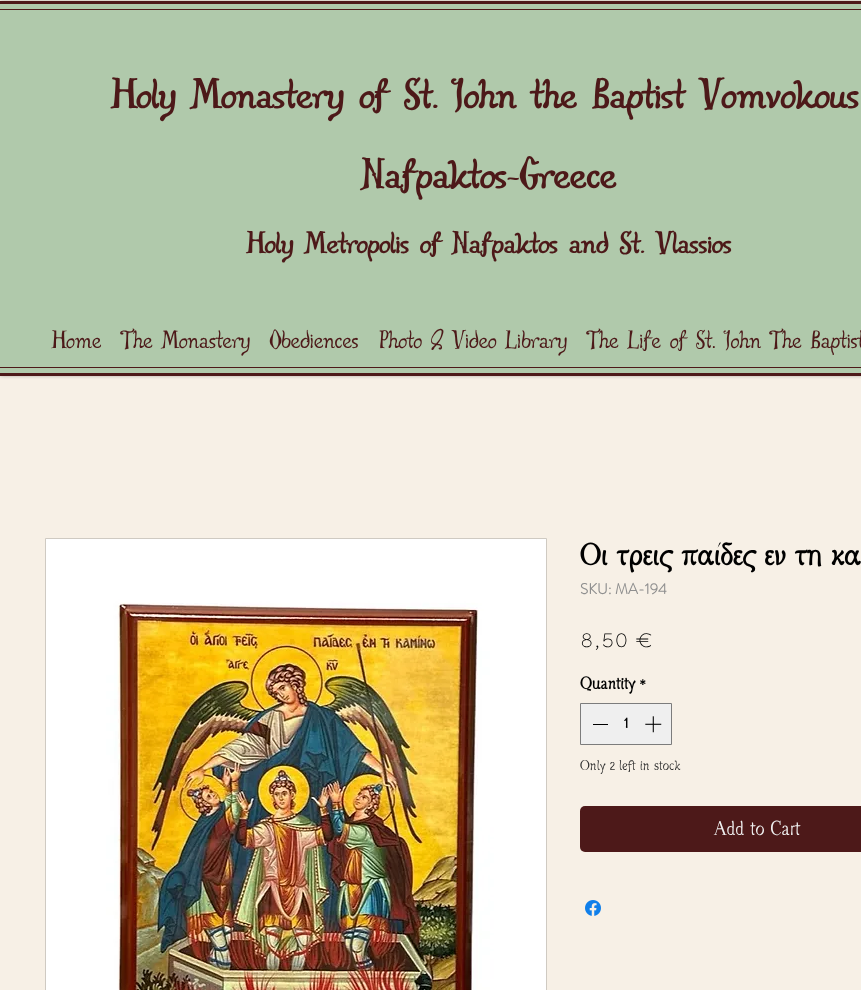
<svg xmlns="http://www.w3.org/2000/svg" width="861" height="990">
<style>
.a{font:600 55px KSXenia;fill:#4d1919}
.b{font:600 40px KSXenia;fill:#4d1919}
.c{font:32px KSXenia;fill:#4d1919}
.d{font:bold 30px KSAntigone;fill:#000}
.e{font:bold 15px 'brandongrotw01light';fill:#8f8f8f}
.f{font:300 27px 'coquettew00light';fill:#000}
.g{font:bold 17px KSAntigone;fill:#000}
.h{font:14px KSAntigone;fill:#303030}
.i{font:20px KSAntigone;fill:#efefef}
</style>
<rect width="100%" height="100%" fill="#f7f0e6"/>
<path fill="#000000b3" filter="blur(2.5px)" d="M0 3h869v371H0z"/>
<path fill="#b0c9ab" d="M0 4h861v369H0z"/>
<path fill="#4d1919" d="M0 1h861v3H0z"/>
<path fill="#4d1919" d="M0 373h861v3H0z"/>
<path fill="#4d1919" d="M0 9h861v1H0z"/>
<path fill="#4d1919" d="M0 367h861v1H0z"/>
<path fill="none" stroke="#cfcac2" d="M45.5 538.5h501v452H45.5z"/>
<image href="1.png" x="46" y="539" width="500" height="451"/>
<path fill="#efefef" stroke="#7c7c7c" d="M580.5 703.5h91v41H580.5z"/>
<path fill="#000" d="M593 724h15v1H593z"/>
<image href="2.png" x="645" y="716" width="17" height="17"/>
<rect fill="#4d1919" x="580" y="806" width="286" height="46" rx="5"/>
<image href="3.png" x="585" y="900" width="16" height="16"/>
<text class="a" x="112" y="108">Holy Monastery of St. John the Baptist Vomvokous</text>
<text class="a" x="362" y="188">Nafpaktos-Greece</text>
<text class="b" x="247" y="253">Holy Metropolis of Nafpaktos and St. Vlassios</text>
<text class="c" x="52" y="348">Home</text>
<text class="c" x="121" y="348">The Monastery</text>
<text class="c" x="270" y="348">Obediences</text>
<text class="c" x="379" y="348">Photo &amp; Video Library</text>
<text class="c" x="587" y="348">The Life of St. John The Baptist</text>
<text class="d" x="580" y="565">Οι τρεις παίδες εν τη κα</text>
<text class="e" x="580" y="594">SKU: MA-194</text>
<text class="f" x="580" y="647">8,50 €</text>
<text class="g" x="580" y="689">Quantity</text>
<text class="g" x="639" y="689">*</text>
<text class="g" x="624" y="728">1</text>
<text class="h" x="580" y="770">Only 2 left in stock</text>
<text class="i" x="714" y="835">Add to Cart</text>
</svg>
